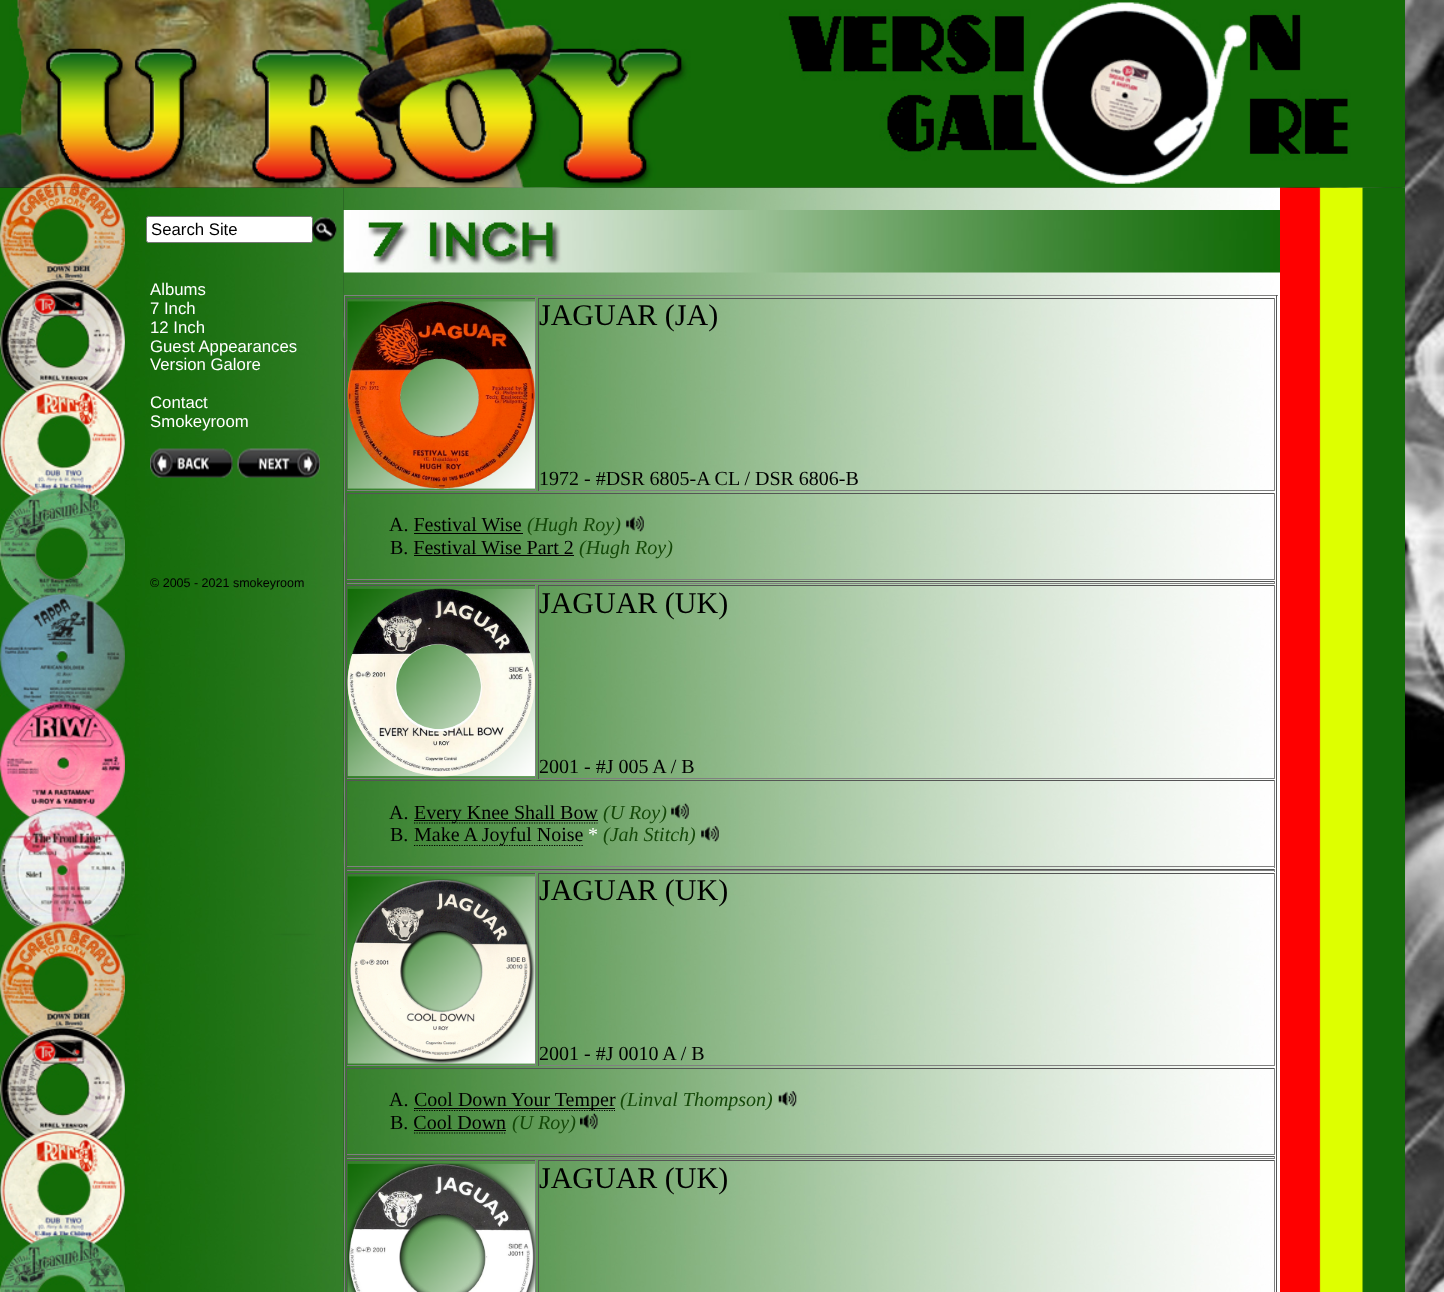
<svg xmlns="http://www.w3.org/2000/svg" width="1444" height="1292">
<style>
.a{font:16.75px Liberation Sans;fill:#000}
.b{font:16.75px Liberation Sans;fill:#fff}
.c{font:12.5px Liberation Sans;fill:#000}
.d{font:30px Liberation Serif;fill:#000}
.e{font:20px Liberation Serif;fill:#000}
.f{font:italic 20px Liberation Serif;fill:#144808}
.g{font:20px Liberation Serif;fill:#fff}
</style>
<rect width="100%" height="100%" fill="#fff"/>
<image href="1.png" x="0" y="0" width="1444" height="1292"/>
<image href="3.png" x="0" y="187" width="125" height="1105"/>
<image href="4.png" x="125" y="187" width="219" height="1105"/>
<image href="8.png" x="343" y="187" width="937" height="1105"/>
<image href="23.png" x="1280" y="187" width="125" height="1105"/>
<image href="2.png" x="0" y="0" width="1405" height="188"/>
<rect fill="#fff" stroke="#767676" x="146.5" y="216.5" width="166" height="26" rx="2"/>
<image href="5.png" x="312" y="217" width="25" height="25"/>
<image href="6.png" x="150" y="448" width="83" height="30"/>
<image href="7.png" x="237" y="448" width="83" height="30"/>
<image href="9.png" x="343" y="210" width="937" height="63"/>
<path fill="#808080" d="M344 295h934v1H344z"/>
<path fill="#555" d="M1276 295h1v997H1276z"/>
<path fill="#808080" d="M344 295h1v997H344z"/>
<path fill="#555" d="M346 298h190v1H346z"/>
<path fill="#808080" d="M535 298h1v193H535z"/>
<path fill="#808080" d="M346 490h190v1H346z"/>
<path fill="#555" d="M346 298h1v193H346z"/>
<image href="10.png" x="347" y="301" width="188" height="188"/>
<image href="11.png" x="347" y="301" width="188" height="188"/>
<path fill="#555" d="M538 298h737v1H538z"/>
<path fill="#808080" d="M1274 298h1v193H1274z"/>
<path fill="#808080" d="M538 490h737v1H538z"/>
<path fill="#555" d="M538 298h1v193H538z"/>
<path fill="#555" d="M346 493h929v1H346z"/>
<path fill="#808080" d="M1274 493h1v87H1274z"/>
<path fill="#808080" d="M346 579h929v1H346z"/>
<path fill="#555" d="M346 493h1v87H346z"/>
<image href="12.png" x="626" y="516" width="18" height="16"/>
<path fill="#000" d="M414 533h109v1H414z"/>
<path fill="#000" d="M414 555h160v1H414z"/>
<path fill="#555" d="M346 581h929v1H346z"/>
<path fill="#808080" d="M1274 581h1v3H1274z"/>
<path fill="#808080" d="M346 583h929v1H346z"/>
<path fill="#555" d="M346 581h1v3H346z"/>
<path fill="#555" d="M346 585h190v1H346z"/>
<path fill="#808080" d="M535 585h1v194H535z"/>
<path fill="#808080" d="M346 778h190v1H346z"/>
<path fill="#555" d="M346 585h1v194H346z"/>
<image href="13.png" x="347" y="588" width="188" height="189"/>
<image href="14.png" x="347" y="588" width="188" height="189"/>
<path fill="#555" d="M538 585h737v1H538z"/>
<path fill="#808080" d="M1274 585h1v194H1274z"/>
<path fill="#808080" d="M538 778h737v1H538z"/>
<path fill="#555" d="M538 585h1v194H538z"/>
<path fill="#555" d="M346 780h929v1H346z"/>
<path fill="#808080" d="M1274 780h1v88H1274z"/>
<path fill="#808080" d="M346 866h929v1H346z"/>
<path fill="#555" d="M346 780h1v88H346z"/>
<path fill="none" stroke="#000" stroke-width="1.2" stroke-dasharray="1.25 1.25" d="M414 823h183.5"/>
<path fill="#000" d="M414 820h184v1H414z"/>
<image href="15.png" x="671" y="803" width="18" height="16"/>
<path fill="none" stroke="#000" stroke-width="1.2" stroke-dasharray="1.25 1.25" d="M414 845.5h170"/>
<image href="16.png" x="701" y="826" width="18" height="16"/>
<path fill="#555" d="M346 869h929v1H346z"/>
<path fill="#808080" d="M1274 869h1v3H1274z"/>
<path fill="#808080" d="M346 870h929v1H346z"/>
<path fill="#555" d="M346 869h1v3H346z"/>
<path fill="#555" d="M346 873h190v1H346z"/>
<path fill="#808080" d="M535 873h1v193H535z"/>
<path fill="#808080" d="M346 1065h190v1H346z"/>
<path fill="#555" d="M346 873h1v193H346z"/>
<image href="17.png" x="347" y="876" width="188" height="188"/>
<image href="18.png" x="349" y="879" width="186" height="185"/>
<path fill="#555" d="M538 873h737v1H538z"/>
<path fill="#808080" d="M1274 873h1v193H1274z"/>
<path fill="#808080" d="M538 1065h737v1H538z"/>
<path fill="#555" d="M538 873h1v193H538z"/>
<path fill="#555" d="M346 1068h929v1H346z"/>
<path fill="#808080" d="M1274 1068h1v87H1274z"/>
<path fill="#808080" d="M346 1154h929v1H346z"/>
<path fill="#555" d="M346 1068h1v87H346z"/>
<path fill="none" stroke="#000" stroke-width="1.2" stroke-dasharray="1.25 1.25" d="M414 1110.5h201"/>
<path fill="#000" d="M414 1108h201v1H414z"/>
<image href="19.png" x="778" y="1091" width="19" height="16"/>
<image href="20.png" x="580" y="1113" width="18" height="16"/>
<path fill="#000" d="M414 1130h92v1H414z"/>
<path fill="none" stroke="#000" stroke-width="1.2" stroke-dasharray="1.25 1.25" d="M414 1133h92"/>
<path fill="#555" d="M346 1156h929v1H346z"/>
<path fill="#808080" d="M1274 1156h1v3H1274z"/>
<path fill="#808080" d="M346 1158h929v1H346z"/>
<path fill="#555" d="M346 1156h1v3H346z"/>
<path fill="#555" d="M346 1160h190v1H346z"/>
<path fill="#808080" d="M535 1160h1v132H535z"/>
<path fill="#555" d="M346 1160h1v132H346z"/>
<image href="21.png" x="347" y="1163" width="188" height="129"/>
<image href="22.png" x="347" y="1163" width="188" height="129"/>
<path fill="#555" d="M538 1160h737v1H538z"/>
<path fill="#808080" d="M1274 1160h1v132H1274z"/>
<path fill="#555" d="M538 1160h1v132H538z"/>
<text class="a" x="151" y="235">Search Site</text>
<text class="b" x="150" y="295">Albums</text>
<text class="b" x="150" y="314">7 Inch</text>
<text class="b" x="150" y="333">12 Inch</text>
<text class="b" x="150" y="352">Guest Appearances</text>
<text class="b" x="150" y="370">Version Galore</text>
<text class="b" x="150" y="408">Contact</text>
<text class="b" x="150" y="427">Smokeyroom</text>
<text class="c" x="150" y="587">© 2005 - 2021 smokeyroom</text>
<text class="d" x="539" y="325">JAGUAR (JA)</text>
<text class="e" x="539" y="485">1972 - #DSR 6805-A CL / DSR 6806-B</text>
<text class="e" x="389" y="531">A. Festival Wise</text>
<text class="f" x="527" y="531">(Hugh Roy)</text>
<text class="e" x="390" y="554">B. Festival Wise Part 2</text>
<text class="f" x="579" y="554">(Hugh Roy)</text>
<text class="d" x="539" y="613">JAGUAR (UK)</text>
<text class="e" x="539" y="773">2001 - #J 005 A / B</text>
<text class="e" x="389" y="819">A.</text>
<text class="e" x="414" y="819">Every Knee Shall Bow</text>
<text class="f" x="603" y="819">(U Roy)</text>
<text class="e" x="390" y="841">B.</text>
<text class="e" x="414" y="841">Make A Joyful Noise</text>
<text class="g" x="588" y="841">*</text>
<text class="f" x="603" y="841">(Jah Stitch)</text>
<text class="d" x="539" y="900">JAGUAR (UK)</text>
<text class="e" x="539" y="1060">2001 - #J 0010 A / B</text>
<text class="e" x="389" y="1106">A.</text>
<text class="e" x="414" y="1106">Cool Down Your Temper</text>
<text class="f" x="620" y="1106">(Linval Thompson)</text>
<text class="e" x="390" y="1129">B. Cool Down</text>
<text class="f" x="512" y="1129">(U Roy)</text>
<text class="d" x="539" y="1188">JAGUAR (UK)</text>
</svg>
